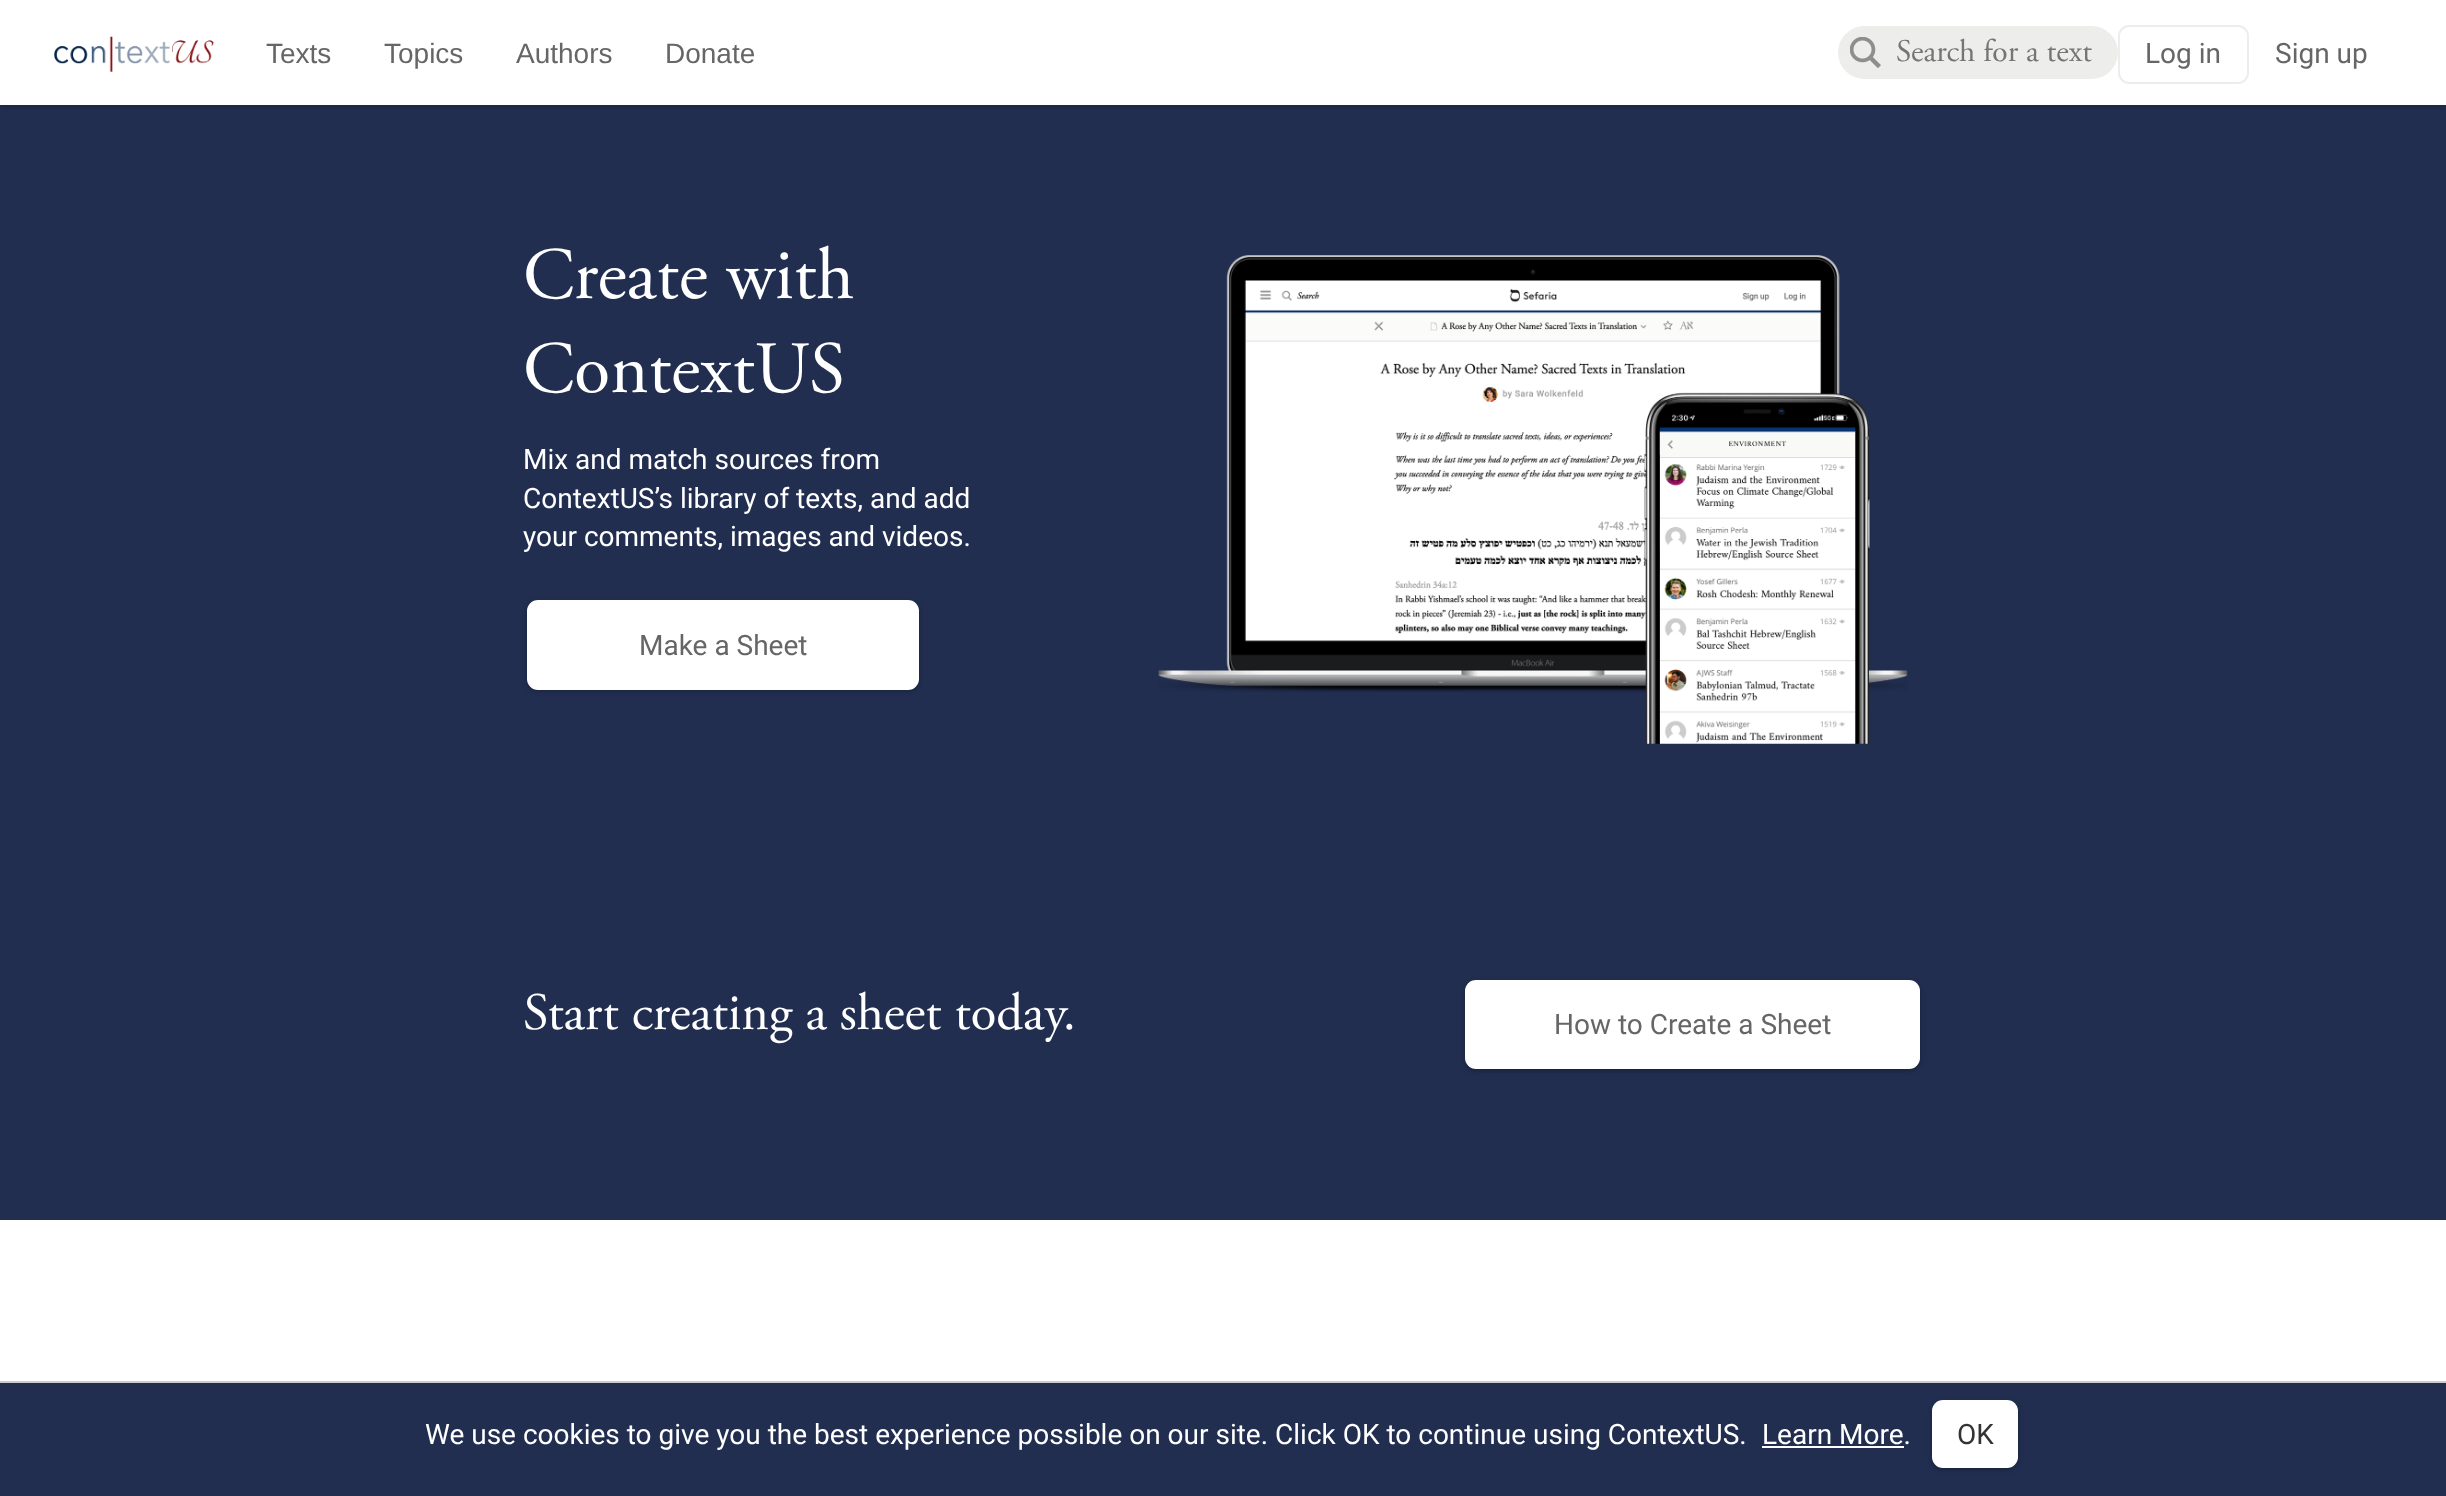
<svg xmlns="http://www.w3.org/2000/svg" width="2446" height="1496">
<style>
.a{font:28px Liberation Sans;fill:#666}
.b{font:31.5px Adobe Garamond;fill:#757575}
.c{font:28px Roboto;fill:#666}
.d{font:28px Roboto;fill:#fff}
.e{font:28px Roboto;fill:#333}
.f{font:73.5px Adobe Garamond;fill:#fff}
.g{font:52.5px Adobe Garamond;fill:#fff}
</style>
<defs>
<clipPath id="clip1"><path d="M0 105h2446v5H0z"/></clipPath>
</defs>
<rect width="100%" height="100%" fill="#fff"/>
<path fill="#212e50" d="M0 105h2446v1115H0z"/>
<g clip-path="url(#clip1)">
<path fill="#00000033" filter="blur(2.5px)" d="M0 2h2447v105H0z"/>
</g>
<image href="1.png" x="54" y="36" width="160" height="36"/>
<rect fill="#ededec" x="1838" y="26" width="280" height="53" rx="26.5"/>
<image href="2.png" x="1850" y="37" width="31" height="31"/>
<rect fill="none" stroke="#ededec" stroke-width="2" x="2119" y="26" width="129" height="57" rx="10"/>
<path fill="#212e50" d="M0 1383h2446v113H0z"/>
<path fill="#ccc" d="M0 1381h2446v2H0z"/>
<path fill="#fff" d="M1762 1446h142v2H1762z"/>
<rect fill="#00000040" filter="blur(2.5px)" x="1932" y="1402" width="86" height="68" rx="11"/>
<rect fill="#fff" x="1932" y="1400" width="86" height="68" rx="11"/>
<rect fill="#00000040" filter="blur(2.5px)" x="527" y="602" width="392" height="89" rx="11"/>
<rect fill="#fff" x="527" y="600" width="392" height="90" rx="11"/>
<image href="3.png" x="1158" y="255" width="750" height="489"/>
<rect fill="#00000040" filter="blur(2.5px)" x="1465" y="982" width="455" height="89" rx="11"/>
<rect fill="#fff" x="1465" y="980" width="455" height="89" rx="11"/>
<text class="a" x="266" y="63">Texts</text>
<text class="a" x="384" y="63">Topics</text>
<text class="a" x="516" y="63">Authors</text>
<text class="a" x="665" y="63">Donate</text>
<text class="b" x="1896" y="61">Search for a text</text>
<text class="c" x="2145" y="63">Log in</text>
<text class="c" x="2275" y="63">Sign up</text>
<text class="d" x="425" y="1444">We use cookies to give you the best experience possible on our site. Click OK to continue using ContextUS.</text>
<text class="d" x="1762" y="1444">Learn More.</text>
<text class="e" x="1957" y="1444">OK</text>
<text class="f" x="523" y="298">Create with</text>
<text class="f" x="523" y="392">ContextUS</text>
<text class="d" x="523" y="469">Mix and match sources from</text>
<text class="d" x="523" y="508">ContextUS’s library of texts, and add</text>
<text class="d" x="523" y="546">your comments, images and videos.</text>
<text class="c" x="639" y="655">Make a Sheet</text>
<text class="g" x="523" y="1029">Start creating a sheet today.</text>
<text class="c" x="1554" y="1034">How to Create a Sheet</text>
</svg>
